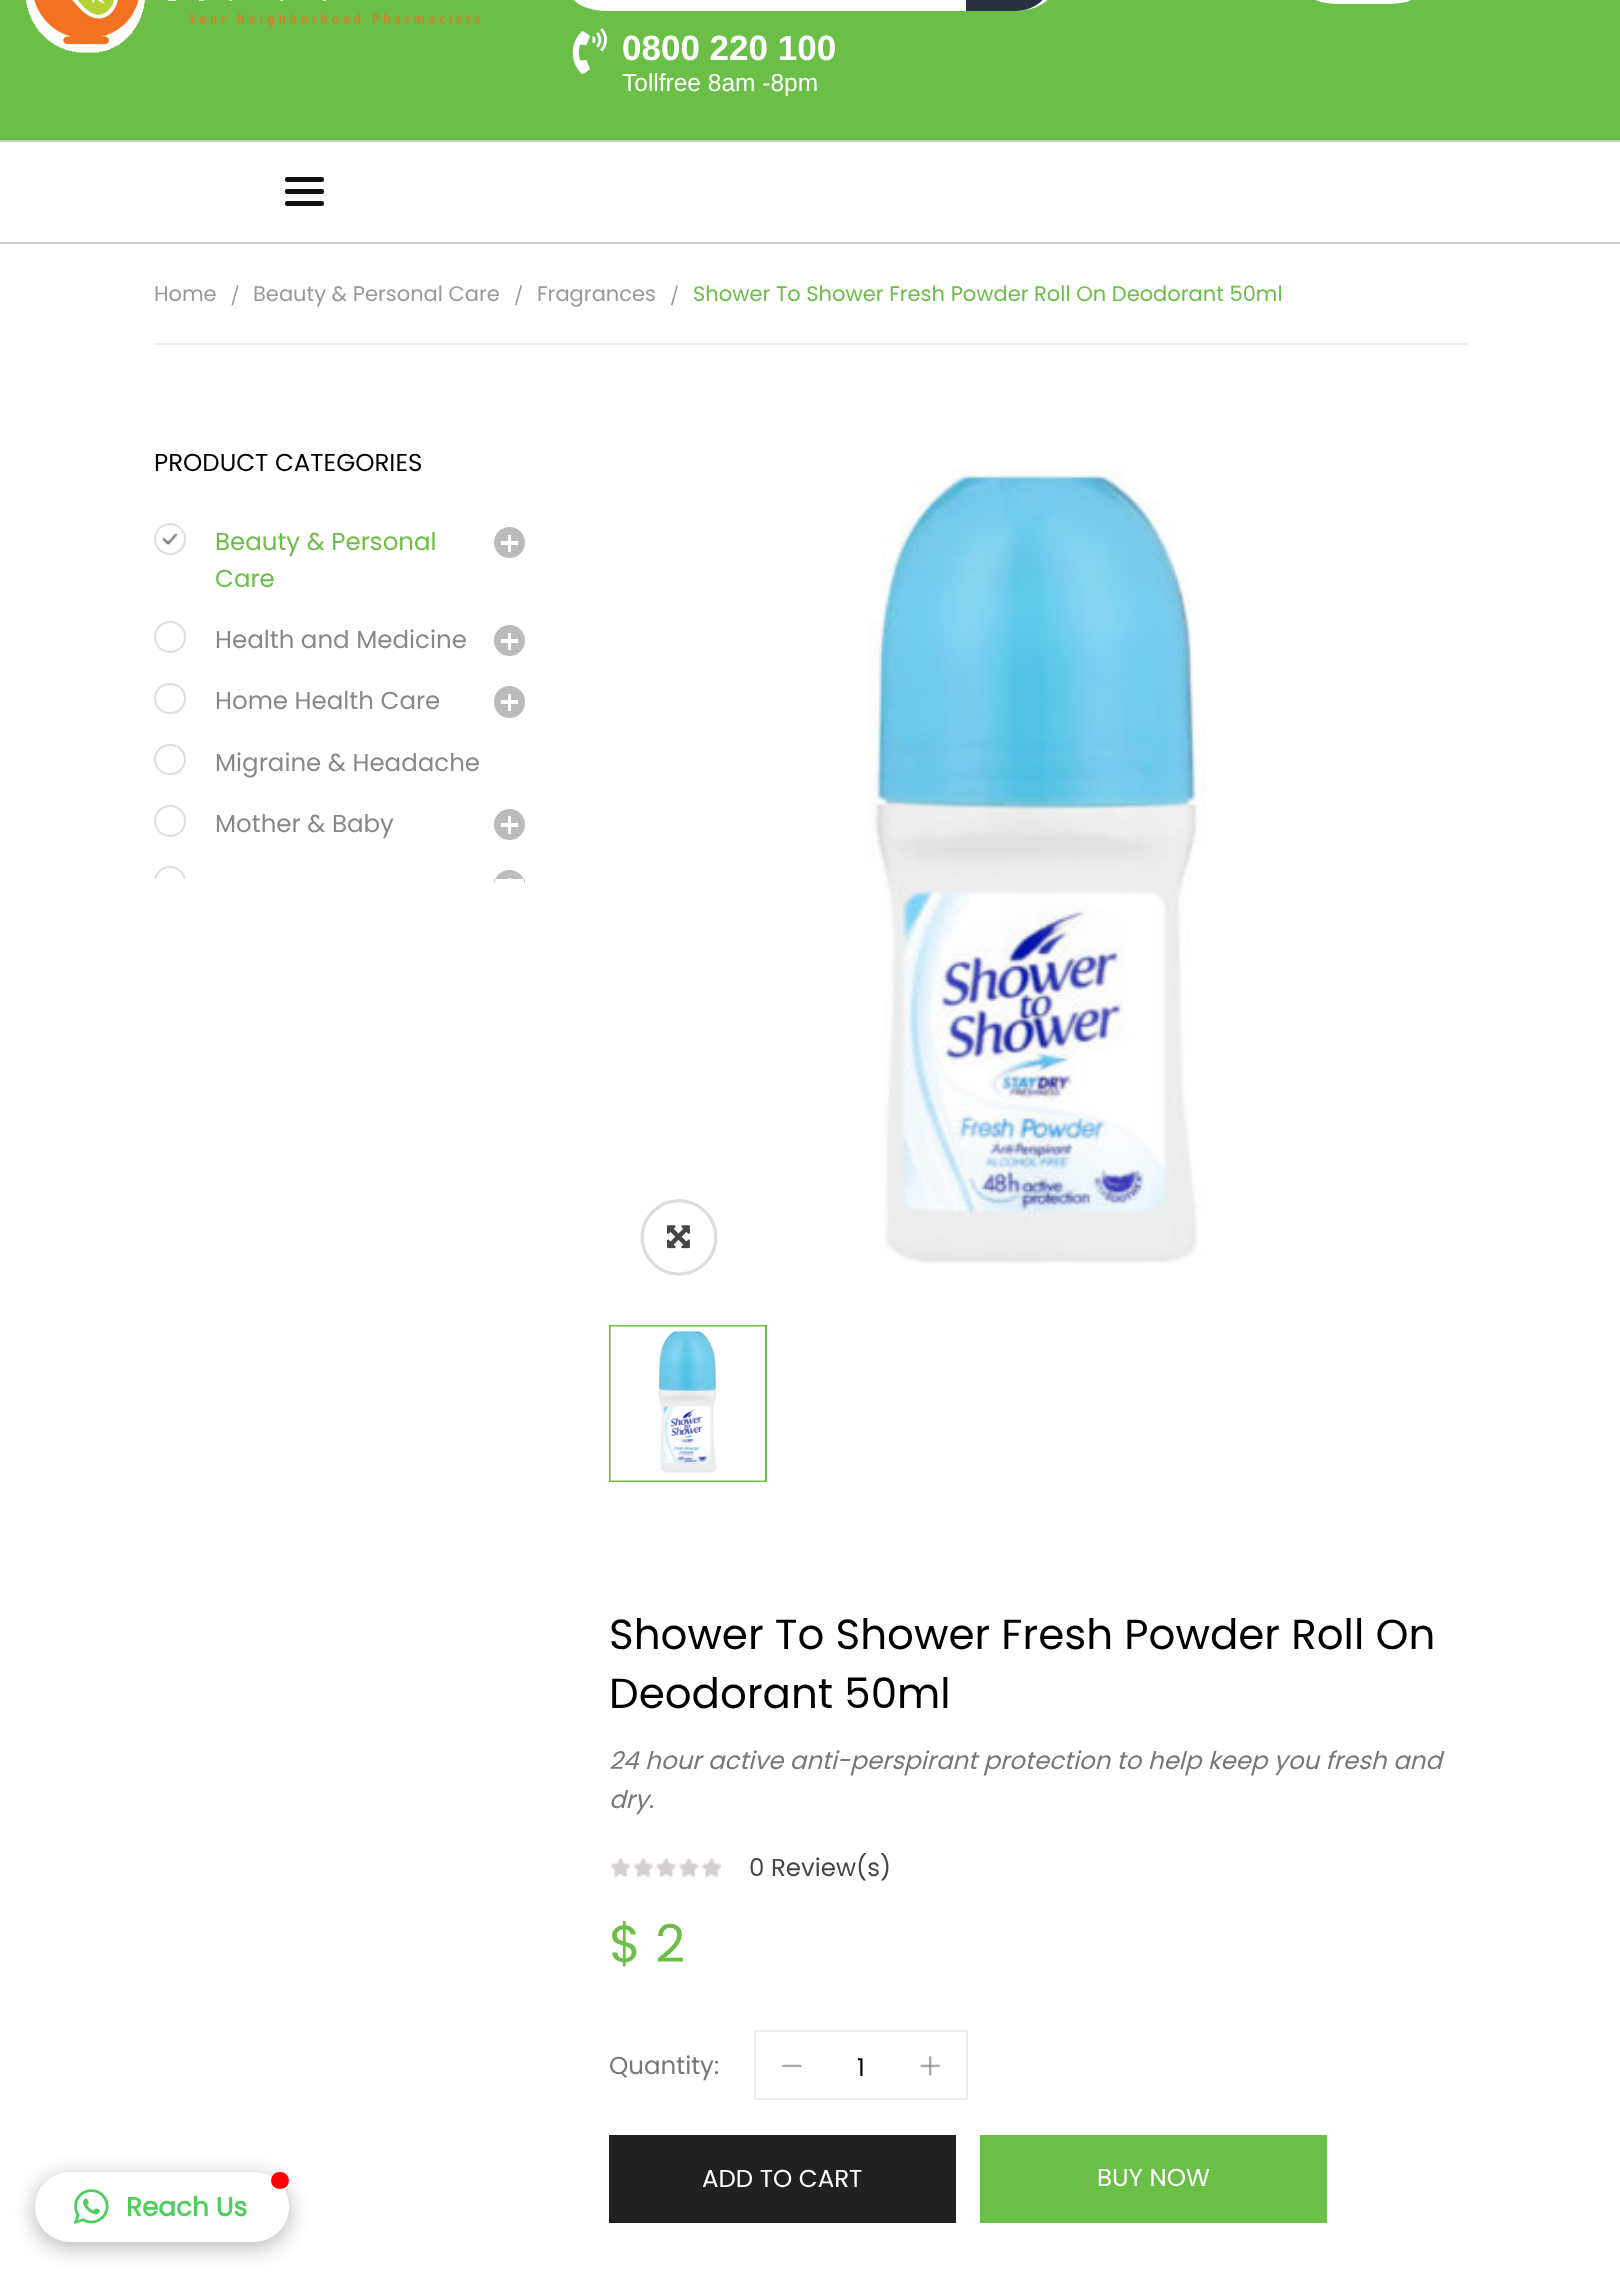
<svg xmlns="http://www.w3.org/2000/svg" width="1620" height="2276">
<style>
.a{font:bold 35px Liberation Sans;fill:#fff}
.b{font:24.5px Liberation Sans;fill:#fff}
.c{font:21px Poppins;fill:#999}
.d{font:21px Poppins;fill:#6bbe46}
.e{font:24.5px Poppins;fill:#000}
.f{font:24.5px Poppins;fill:#6bbe46}
.g{font:24.5px Poppins;fill:#888}
.h{font:42px Poppins;fill:#000}
.i{font:italic 24.5px Poppins;fill:#777}
.j{font:24.5px Poppins;fill:#464646}
.k{font:52px Poppins;fill:#6bbe46}
.l{font:24.5px Poppins;fill:#777}
.m{font:24.5px Poppins;fill:#fff}
.n{font:bold 26.25px Poppins;fill:#4fce5d}
</style>
<defs>
<clipPath id="clip1"><path d="M154 511h403v368H154z"/></clipPath>
</defs>
<rect width="100%" height="100%" fill="#fff"/>
<path fill="#6bbe46" d="M0 0h1620v140H0z"/>
<rect fill="#fff" x="1302" y="-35" width="123" height="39" rx="35"/>
<image href="1.png" x="26" y="0" width="454" height="53"/>
<rect fill="#fff" x="567" y="-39" width="487" height="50" rx="38.5"/>
<path fill="#283142" d="M966-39h49.5c21.5 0 38.5 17 38.5 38.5v-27c0 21.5-17 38.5-38.5 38.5h-49.5z"/>
<image href="2.png" x="572" y="28" width="35" height="46"/>
<path fill="#ccc" d="M0 140h1620v2H0z"/>
<path fill="#ccc" d="M0 242h1620v2H0z"/>
<rect fill="#111" x="285" y="177" width="39" height="5" rx="2"/>
<rect fill="#111" x="285" y="189" width="39" height="5" rx="2"/>
<rect fill="#111" x="285" y="201" width="39" height="5" rx="2"/>
<path fill="#ededed" d="M154 343h1313v2H154z"/>
<path fill="#999" d="M237 285l1.5 .5l-5.5 20l-1.5-.5z"/>
<path fill="#999" d="M520.5 285l1.5 .5l-5.5 20l-1.5-.5z"/>
<path fill="#999" d="M676.5 285l1.5 .5l-5.5 20l-1.5-.5z"/>
<circle fill="none" stroke="#dedede" stroke-width="2" cx="170" cy="539" r="15"/>
<circle fill="#bbb" cx="509.5" cy="542.5" r="15.5"/>
<path fill="#fff" d="M501 541h17v4H501z"/>
<path fill="#fff" d="M508 535h3v17H508z"/>
<image href="3.png" x="162" y="533" width="15" height="12"/>
<circle fill="none" stroke="#dedede" stroke-width="2" cx="170" cy="637" r="15"/>
<circle fill="#bbb" cx="509.5" cy="640.5" r="15.5"/>
<path fill="#fff" d="M501 639h17v4H501z"/>
<path fill="#fff" d="M508 633h3v17H508z"/>
<rect fill="none" stroke="#dedede" stroke-width="2" x="155" y="684" width="30" height="29" rx="14.5"/>
<rect fill="#bbb" x="494" y="686" width="31" height="32" rx="15.5"/>
<path fill="#fff" d="M501 700h17v4H501z"/>
<path fill="#fff" d="M508 694h3v17H508z"/>
<rect fill="none" stroke="#dedede" stroke-width="2" x="155" y="745" width="30" height="29" rx="14.5"/>
<circle fill="none" stroke="#dedede" stroke-width="2" cx="170" cy="821" r="15"/>
<circle fill="#bbb" cx="509.5" cy="824.5" r="15.5"/>
<path fill="#fff" d="M501 823h17v4H501z"/>
<path fill="#fff" d="M508 816h3v18H508z"/>
<g clip-path="url(#clip1)">
<circle fill="none" stroke="#dedede" stroke-width="2" cx="170" cy="882" r="15"/>
</g>
<path fill="#bbb" d="M509.5 870c8.5 0 15.5 7 15.5 15.5v-6.5h-31v6.5c0-8.5 7-15.5 15.5-15.5z"/>
<path fill="#fff" d="M508 878h3v1H508z"/>
<path fill="none" stroke="#ddd" stroke-width="3.5" d="M653 1211.5c14.5-14.5 37.5-14.5 52 0c14.5 14 14.5 37.5 0 51.5c-14.5 14.5-37.5 14.5-52 0c-14.5-14-14.5-37.5 0-51.5z"/>
<path fill="#fff" d="M654 1213c14-14 36-14 50 0c13 13 13 35 0 49c-14 14-36 14-50 0c-13-14-13-36 0-49z"/>
<image href="4.png" x="667" y="1225" width="23" height="24"/>
<image href="5.png" x="867" y="467" width="339" height="797"/>
<path fill="none" stroke="#6bbe46" stroke-width="2" d="M610 1326h156v155H610z"/>
<image href="6.png" x="610" y="1326" width="155" height="155"/>
<image href="7.png" x="610" y="1858" width="115" height="20"/>
<path fill="none" stroke="#ededed" stroke-width="2" d="M755 2031h212v68H755z"/>
<image href="8.png" x="781" y="2064" width="21" height="4"/>
<image href="9.png" x="920" y="2055" width="21" height="21"/>
<path fill="#212121" d="M609 2135h347v88H609z"/>
<path fill="#6bbe46" d="M980 2135h347v88H980z"/>
<rect fill="#00000026" filter="blur(10.5px)" x="35" y="2177" width="254" height="70" rx="35"/>
<rect fill="#00000026" filter="blur(10.5px)" x="35" y="2177" width="254" height="70" rx="35"/>
<rect fill="#fff" x="35" y="2172" width="254" height="70" rx="35"/>
<rect fill="#f00" x="271" y="2172" width="18" height="17" rx="8.5"/>
<image href="10.png" x="74" y="2189" width="35" height="35"/>
<text class="a" x="622" y="60">0800 220 100</text>
<text class="b" x="622" y="91">Tollfree 8am -8pm</text>
<text class="c" x="154" y="301">Home</text>
<text class="c" x="253" y="301">Beauty &amp; Personal Care</text>
<text class="c" x="537" y="301">Fragrances</text>
<text class="d" x="693" y="301">Shower To Shower Fresh Powder Roll On Deodorant 50ml</text>
<text class="e" x="154" y="471">PRODUCT CATEGORIES</text>
<text class="f" x="215" y="550">Beauty &amp; Personal</text>
<text class="f" x="215" y="587">Care</text>
<text class="g" x="215" y="648">Health and Medicine</text>
<text class="g" x="215" y="709">Home Health Care</text>
<text class="g" x="215" y="771">Migraine &amp; Headache</text>
<text class="g" x="215" y="832">Mother &amp; Baby</text>
<text class="h" x="609" y="1649">Shower To Shower Fresh Powder Roll On</text>
<text class="h" x="609" y="1708">Deodorant 50ml</text>
<text class="i" x="609" y="1769">24 hour active anti-perspirant protection to help keep you fresh and</text>
<text class="i" x="609" y="1808">dry.</text>
<text class="j" x="749" y="1876">0 Review(s)</text>
<text class="k" x="609" y="1962">$ 2</text>
<text class="l" x="609" y="2074">Quantity:</text>
<text class="e" x="857" y="2076">1</text>
<text class="m" x="702" y="2187">ADD TO CART</text>
<text class="m" x="1097" y="2186">BUY NOW</text>
<text class="n" x="126" y="2216">Reach Us</text>
</svg>
